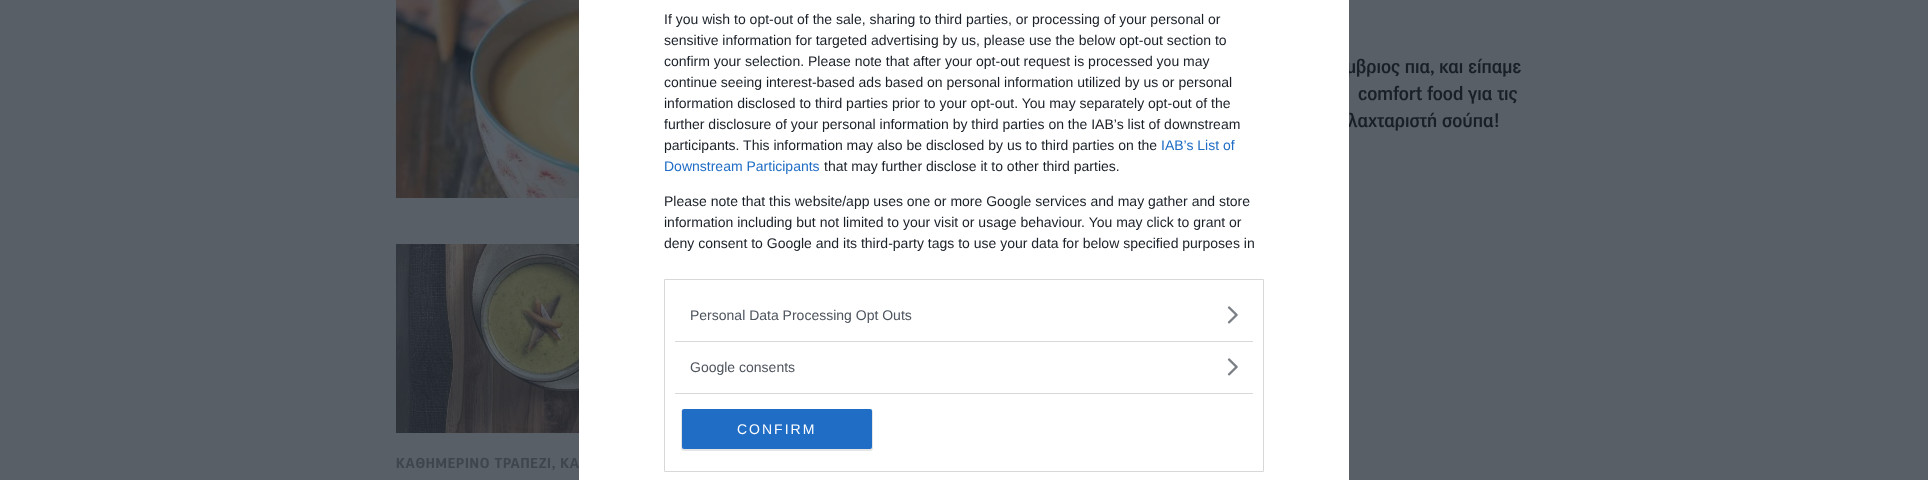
<svg xmlns="http://www.w3.org/2000/svg" width="1928" height="480">
<style>
.a{font:500 19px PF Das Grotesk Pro;fill:#191f27}
.b{font:14px Liberation Sans;letter-spacing:2px;fill:#fff}
.c{font:14px Liberation Sans;fill:#4d545d}
.d{font:14px Liberation Sans;fill:#191f27}
.e{font:14px Liberation Sans;fill:#206dc5}
.f{font:bold 14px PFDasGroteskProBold;letter-spacing:0.7px;fill:#3f454d}
</style>
<rect width="100%" height="100%" fill="#595f67"/>
<image href="2.png" x="396" y="0" width="183" height="198"/>
<image href="3.png" x="396" y="244" width="183" height="189"/>
<text class="a" x="1346" y="73">μβριος πια, και είπαμε</text>
<text class="a" x="1358" y="100">comfort food για τις</text>
<text class="a" x="1348" y="127">λαχταριστή σούπα!</text>
<path fill="#fff" d="M579 0h770v480H579z"/>
<path fill="none" stroke="#d8d8d8" d="M664.5 279.5h599v192H664.5z"/>
<image href="1.png" x="1227" y="358" width="11" height="18"/>
<image href="1.png" x="1227" y="306" width="11" height="18"/>
<rect fill="#0000001a" filter="blur(0.5px)" x="681" y="409" width="192" height="42" rx="3"/>
<rect fill="#206dc5" x="682" y="409" width="190" height="40" rx="2"/>
<text class="b" x="737" y="434">CONFIRM</text>
<text class="c" x="690" y="372">Google consents</text>
<path fill="#d8d8d8" d="M675 393h578v1H675z"/>
<text class="c" x="690" y="320">Personal Data Processing Opt Outs</text>
<path fill="#d8d8d8" d="M675 341h578v1H675z"/>
<text class="d" x="664" y="248">deny consent to Google and its third-party tags to use your data for below specified purposes in</text>
<text class="d" x="664" y="227">information including but not limited to your visit or usage behaviour. You may click to grant or</text>
<text class="d" x="664" y="206">Please note that this website/app uses one or more Google services and may gather and store</text>
<text class="d" x="824" y="171">that may further disclose it to other third parties.</text>
<text class="e" x="664" y="171">Downstream Participants</text>
<text class="e" x="1161" y="150">IAB’s List of</text>
<text class="d" x="664" y="150">participants. This information may also be disclosed by us to third parties on the</text>
<text class="d" x="664" y="129">further disclosure of your personal information by third parties on the IAB’s list of downstream</text>
<text class="d" x="664" y="108">information disclosed to third parties prior to your opt-out. You may separately opt-out of the</text>
<text class="d" x="664" y="87">continue seeing interest-based ads based on personal information utilized by us or personal</text>
<text class="d" x="664" y="66">confirm your selection. Please note that after your opt-out request is processed you may</text>
<text class="d" x="664" y="45">sensitive information for targeted advertising by us, please use the below opt-out section to</text>
<text class="d" x="664" y="24">If you wish to opt-out of the sale, sharing to third parties, or processing of your personal or</text>
<text class="f" x="396" y="468">ΚΑΘΗΜΕΡΙΝΟ ΤΡΑΠΕΖΙ, ΚΑ</text>
</svg>
